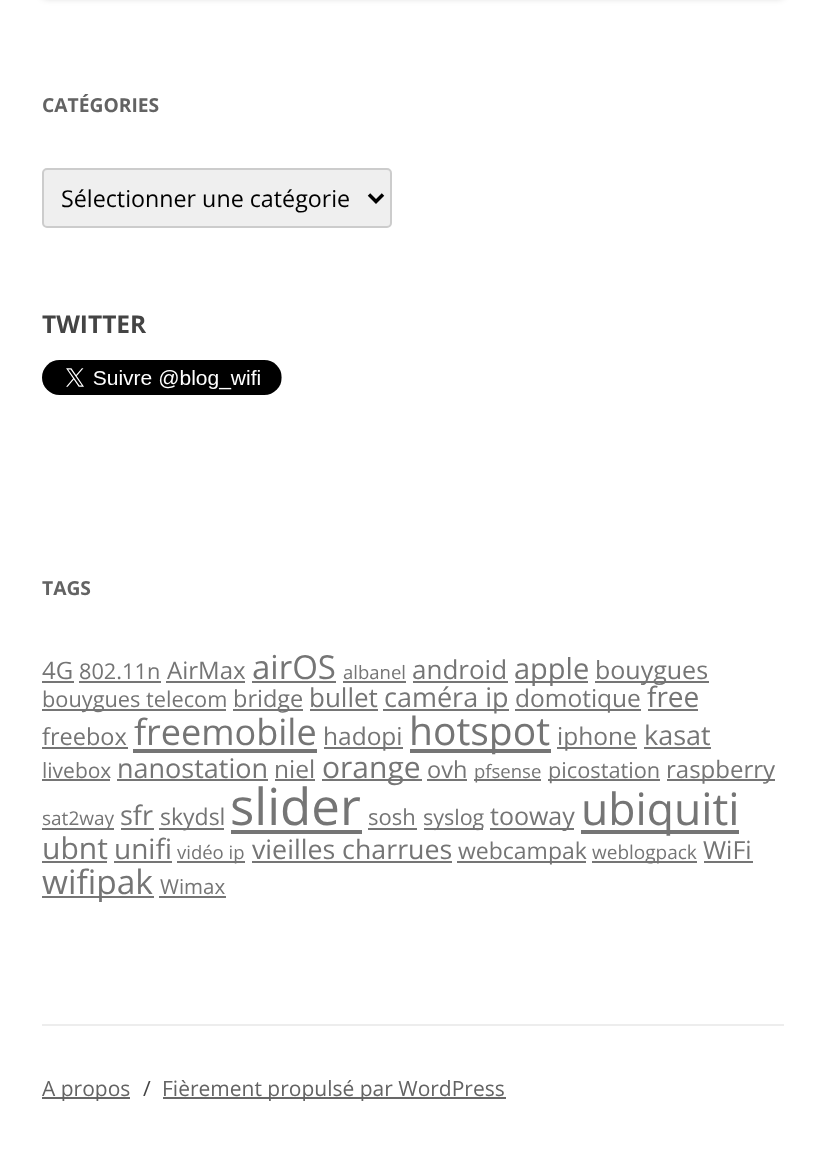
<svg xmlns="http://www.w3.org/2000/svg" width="826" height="1151">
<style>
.a{font:bold 19.25px Open Sans;fill:#636363}
.b{font:23.25px Open Sans;fill:#000}
.c{font:bold 24.5px Open Sans;fill:#444}
.d{font:24px Open Sans;fill:#757575}
.e{font:21.75px Open Sans;fill:#757575}
.f{font:33px Open Sans;fill:#757575}
.g{font:18.5px Open Sans;fill:#757575}
.h{font:26px Open Sans;fill:#757575}
.i{font:29px Open Sans;fill:#757575}
.j{font:25px Open Sans;fill:#757575}
.k{font:23.5px Open Sans;fill:#757575}
.l{font:27px Open Sans;fill:#757575}
.m{font:24.5px Open Sans;fill:#757575}
.n{font:28px Open Sans;fill:#757575}
.o{font:36px Open Sans;fill:#757575}
.p{font:39px Open Sans;fill:#757575}
.q{font:21px Open Sans;fill:#757575}
.r{font:30px Open Sans;fill:#757575}
.s{font:19px Open Sans;fill:#757575}
.t{font:23px Open Sans;fill:#757575}
.u{font:51px Open Sans;fill:#757575}
.v{font:22px Open Sans;fill:#757575}
.w{font:21.5px Open Sans;fill:#757575}
.x{font:44.5px Open Sans;fill:#757575}
.y{font:26.75px Open Sans;fill:#757575}
.z{font:33.5px Open Sans;fill:#757575}
.a1{font:20.5px Open Sans;fill:#757575}
.b1{font:21px Open Sans;fill:#636363}
.c1{font:21px Open Sans;fill:#444}
</style>
<rect width="100%" height="100%" fill="#fff"/>
<rect fill="#00000033" filter="blur(3.5px)" x="42" y="-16" width="742" height="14" rx="5"/>
<rect fill="#efefef" stroke="#ccc" stroke-width="2" x="43" y="169" width="348" height="58" rx="4"/>
<path fill="none" stroke="#000" stroke-width="3.5" d="M369 194.5l7 7l7-7"/>
<image href="1.png" x="42" y="360" width="240" height="35"/>
<path fill="#757575" d="M42 681h32v2H42z"/>
<path fill="#757575" d="M79 681h82v2H79z"/>
<path fill="#757575" d="M166 681h79v2H166z"/>
<path fill="#757575" d="M252 681h84v2H252z"/>
<path fill="#757575" d="M343 681h63v2H343z"/>
<path fill="#757575" d="M413 681h95v2H413z"/>
<path fill="#757575" d="M515 681h73v2H515z"/>
<path fill="#757575" d="M595 681h114v2H595z"/>
<path fill="#757575" d="M42 709h184v2H42z"/>
<path fill="#757575" d="M233 709h70v2H233z"/>
<path fill="#757575" d="M310 709h68v2H310z"/>
<path fill="#757575" d="M383 709h126v2H383z"/>
<path fill="#757575" d="M515 709h126v2H515z"/>
<path fill="#757575" d="M648 709h50v2H648z"/>
<path fill="#757575" d="M42 747h86v2H42z"/>
<path fill="#757575" d="M133 749h184v4H133z"/>
<path fill="#757575" d="M324 747h79v2H324z"/>
<path fill="#757575" d="M410 749h141v4H410z"/>
<path fill="#757575" d="M557 747h80v2H557z"/>
<path fill="#757575" d="M644 747h67v2H644z"/>
<path fill="#757575" d="M42 779h68v2H42z"/>
<path fill="#757575" d="M117 779h151v2H117z"/>
<path fill="#757575" d="M275 779h40v2H275z"/>
<path fill="#757575" d="M322 779h100v2H322z"/>
<path fill="#757575" d="M427 779h40v2H427z"/>
<path fill="#757575" d="M474 779h67v2H474z"/>
<path fill="#757575" d="M548 779h112v2H548z"/>
<path fill="#757575" d="M667 779h108v2H667z"/>
<path fill="#757575" d="M42 828h72v2H42z"/>
<path fill="#757575" d="M121 828h33v2H121z"/>
<path fill="#757575" d="M159 828h65v2H159z"/>
<path fill="#757575" d="M231 830h131v4H231z"/>
<path fill="#757575" d="M368 828h49v2H368z"/>
<path fill="#757575" d="M424 828h59v2H424z"/>
<path fill="#757575" d="M490 828h84v2H490z"/>
<path fill="#757575" d="M581 830h158v4H581z"/>
<path fill="#757575" d="M42 861h65v2H42z"/>
<path fill="#757575" d="M114 861h58v2H114z"/>
<path fill="#757575" d="M177 861h68v2H177z"/>
<path fill="#757575" d="M252 861h200v2H252z"/>
<path fill="#757575" d="M457 861h129v2H457z"/>
<path fill="#757575" d="M592 861h105v2H592z"/>
<path fill="#757575" d="M704 861h49v2H704z"/>
<path fill="#757575" d="M42 896h112v2H42z"/>
<path fill="#757575" d="M159 896h67v2H159z"/>
<path fill="#ededed" d="M42 1024h742v2H42z"/>
<path fill="#686868" d="M42 1097h88v2H42z"/>
<path fill="#686868" d="M163 1097h343v2H163z"/>
<text class="a" x="42" y="112">CATÉGORIES</text>
<text class="b" x="61" y="207">Sélectionner une catégorie</text>
<text class="c" x="42" y="333">TWITTER</text>
<text class="a" x="42" y="595">TAGS</text>
<text class="d" x="42" y="679">4G</text>
<text class="e" x="79" y="679">802.11n</text>
<text class="d" x="167" y="679">AirMax</text>
<text class="f" x="252" y="679">airOS</text>
<text class="g" x="343" y="679">albanel</text>
<text class="h" x="412" y="679">android</text>
<text class="i" x="514" y="679">apple</text>
<text class="j" x="595" y="679">bouygues</text>
<text class="e" x="42" y="707">bouygues telecom</text>
<text class="k" x="233" y="707">bridge</text>
<text class="h" x="309" y="707">bullet</text>
<text class="l" x="384" y="707">caméra ip</text>
<text class="m" x="515" y="707">domotique</text>
<text class="n" x="647" y="707">free</text>
<text class="k" x="42" y="745">freebox</text>
<text class="o" x="134" y="745">freemobile</text>
<text class="m" x="323" y="745">hadopi</text>
<text class="p" x="409" y="745">hotspot</text>
<text class="m" x="557" y="745">iphone</text>
<text class="l" x="644" y="745">kasat</text>
<text class="q" x="42" y="778">livebox</text>
<text class="l" x="117" y="778">nanostation</text>
<text class="m" x="274" y="778">niel</text>
<text class="r" x="322" y="778">orange</text>
<text class="k" x="427" y="778">ovh</text>
<text class="g" x="474" y="778">pfsense</text>
<text class="e" x="548" y="778">picostation</text>
<text class="d" x="666" y="778">raspberry</text>
<text class="s" x="42" y="825">sat2way</text>
<text class="l" x="120" y="825">sfr</text>
<text class="t" x="160" y="825">skydsl</text>
<text class="u" x="230" y="825">slider</text>
<text class="v" x="368" y="825">sosh</text>
<text class="w" x="423" y="825">syslog</text>
<text class="j" x="490" y="825">tooway</text>
<text class="x" x="581" y="825">ubiquiti</text>
<text class="r" x="42" y="859">ubnt</text>
<text class="n" x="114" y="859">unifi</text>
<text class="g" x="177" y="859">vidéo ip</text>
<text class="y" x="252" y="859">vieilles charrues</text>
<text class="t" x="458" y="859">webcampak</text>
<text class="s" x="592" y="859">weblogpack</text>
<text class="j" x="703" y="859">WiFi</text>
<text class="z" x="42" y="894">wifipak</text>
<text class="a1" x="160" y="894">Wimax</text>
<text class="b1" x="42" y="1096">A propos</text>
<text class="c1" x="143" y="1096">/</text>
<text class="b1" x="162" y="1096">Fièrement propulsé par WordPress</text>
</svg>
